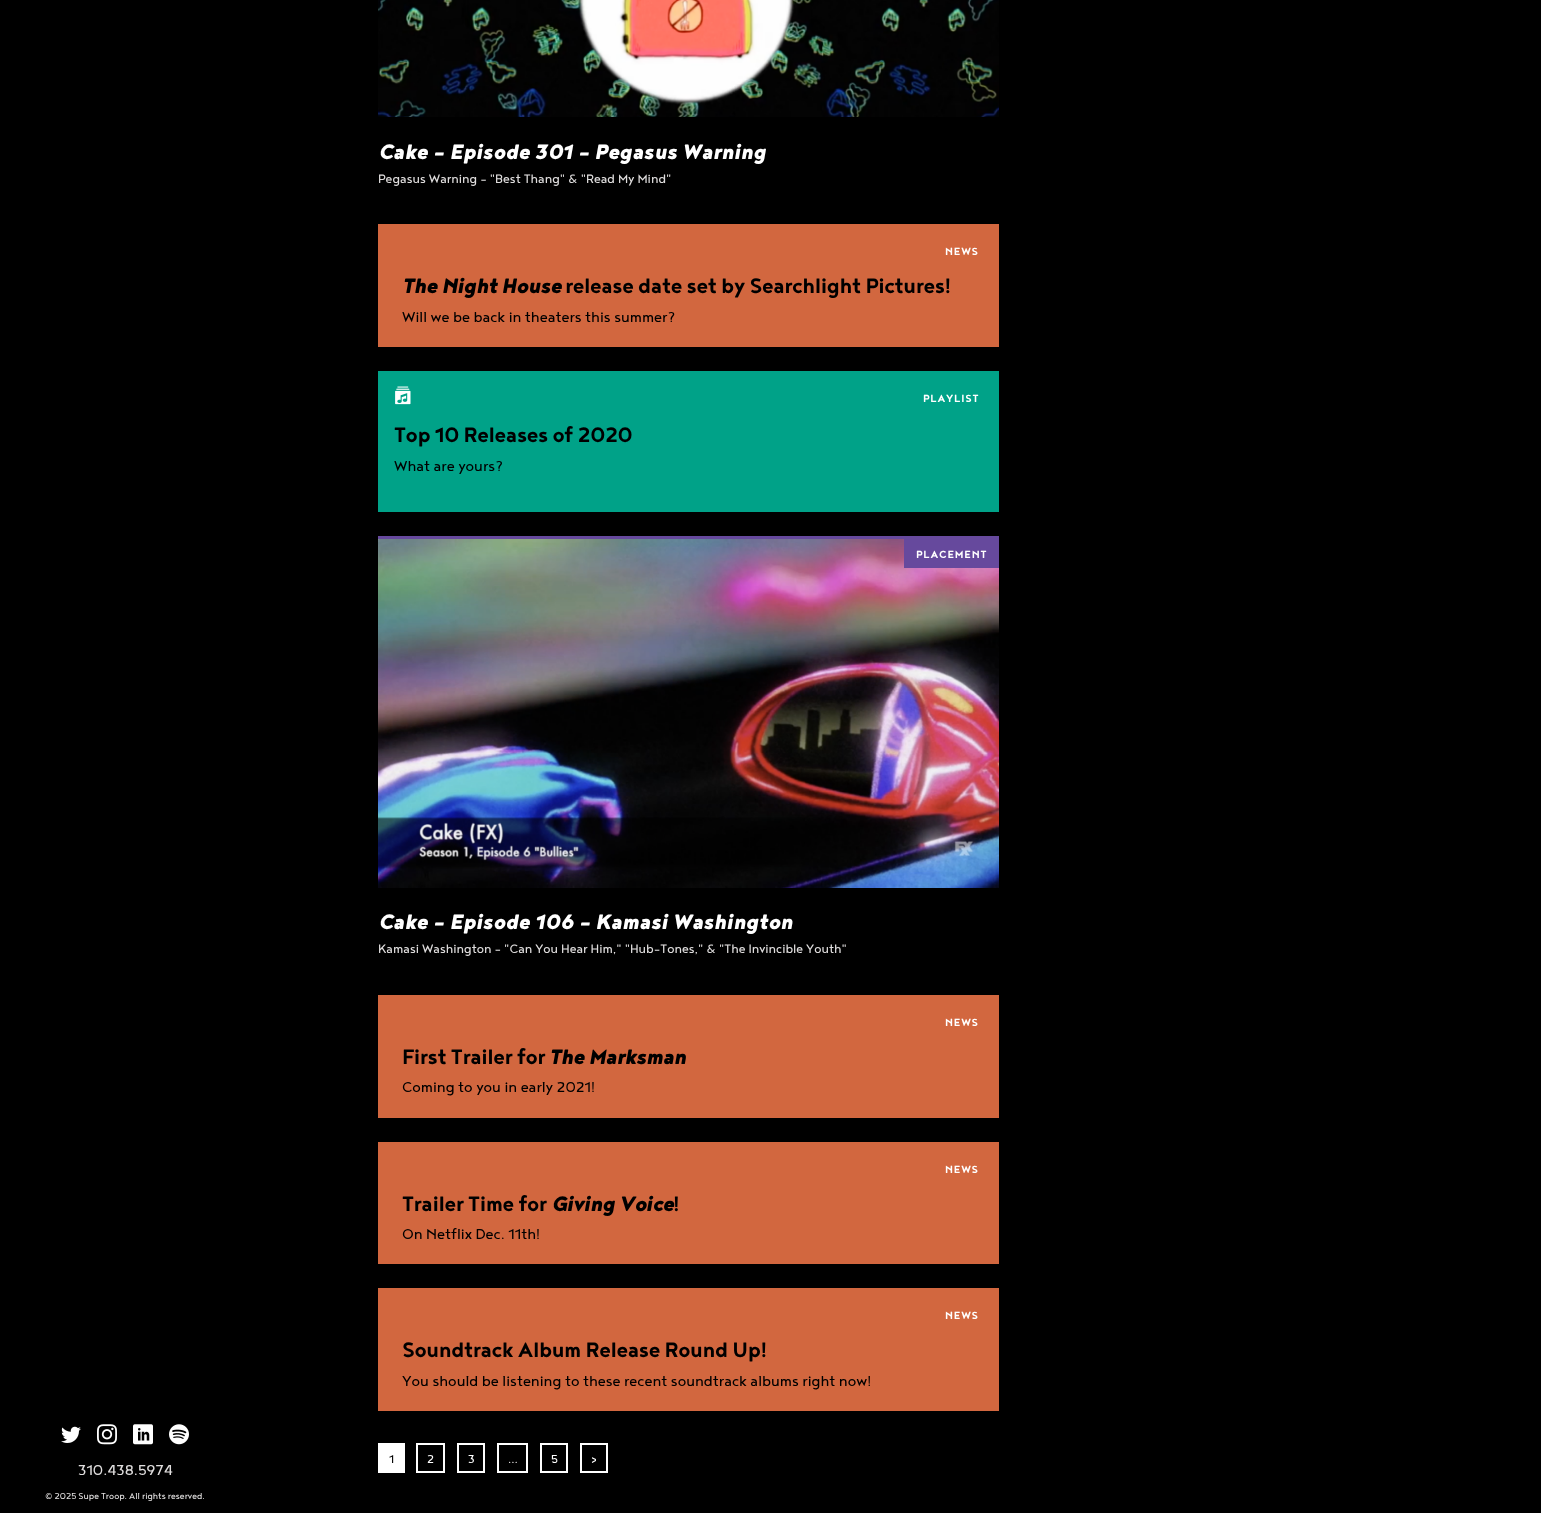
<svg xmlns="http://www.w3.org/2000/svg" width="1541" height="1513">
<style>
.a{font:italic bold 25.6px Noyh;fill:#fff}
.b{font:14.95px Noyh;fill:#e0dede}
.c{font:bold 12.75px Noyh;letter-spacing:0.75px;fill:#fff}
.d{font:italic bold 25.6px Noyh;letter-spacing:-0.45px;fill:#000}
.e{font:bold 25.6px Noyh;letter-spacing:-0.45px;fill:#000}
.f{font:17.6px Noyh;fill:#000}
.g{font:14px Noyh;fill:#000}
.h{font:14px Noyh;fill:#fff}
.i{font:14px Noyh;fill:#e0dede}
.j{font:17.6px Noyh;fill:#e0dede}
.k{font:10.5px Noyh;fill:#e0dede}
</style>
<rect width="100%" height="100%" fill="#000"/>
<image href="1.png" x="378" y="0" width="621" height="117"/>
<path fill="#d2673f" d="M378 224h621v123H378z"/>
<path fill="#00a288" d="M378 371h621v141H378z"/>
<image href="2.png" x="395" y="386" width="16" height="19"/>
<path fill="#66499d" d="M378 536h621v3H378z"/>
<image href="3.png" x="378" y="539" width="621" height="349"/>
<path fill="#66499d" d="M904 539h95v29H904z"/>
<path fill="#d2673f" d="M378 995h621v123H378z"/>
<path fill="#d2673f" d="M378 1142h621v122H378z"/>
<path fill="#d2673f" d="M378 1288h621v123H378z"/>
<path fill="#fff" d="M378 1443h27v30H378z"/>
<path fill="none" stroke="#fff" stroke-width="2" d="M417 1444h27v28H417z"/>
<path fill="none" stroke="#fff" stroke-width="2" d="M458 1444h26v28H458z"/>
<path fill="none" stroke="#fff" stroke-width="2" d="M498 1444h29v28H498z"/>
<path fill="none" stroke="#fff" stroke-width="2" d="M541 1444h26v28H541z"/>
<path fill="none" stroke="#fff" stroke-width="2" d="M581 1444h26v28H581z"/>
<image href="4.png" x="61" y="1426" width="20" height="17"/>
<image href="5.png" x="97" y="1424" width="20" height="21"/>
<image href="6.png" x="133" y="1424" width="20" height="21"/>
<image href="7.png" x="169" y="1424" width="20" height="21"/>
<text class="a" x="378" y="159">Cake – Episode 301 – Pegasus Warning</text>
<text class="b" x="378" y="183">Pegasus Warning - "Best Thang" &amp; "Read My Mind"</text>
<text class="c" x="945" y="255">NEWS</text>
<text class="d" x="402" y="293">The Night House</text>
<text class="e" x="565" y="293">release date set by Searchlight Pictures!</text>
<text class="f" x="402" y="322">Will we be back in theaters this summer?</text>
<text class="c" x="923" y="402">PLAYLIST</text>
<text class="e" x="394" y="442">Top 10 Releases of 2020</text>
<text class="f" x="394" y="471">What are yours?</text>
<text class="c" x="916" y="558">PLACEMENT</text>
<text class="a" x="378" y="929">Cake – Episode 106 – Kamasi Washington</text>
<text class="b" x="378" y="953">Kamasi Washington - "Can You Hear Him," "Hub-Tones," &amp; "The Invincible Youth"</text>
<text class="c" x="945" y="1026">NEWS</text>
<text class="e" x="402" y="1064">First Trailer for</text>
<text class="d" x="549" y="1064">The Marksman</text>
<text class="f" x="402" y="1092">Coming to you in early 2021!</text>
<text class="c" x="945" y="1173">NEWS</text>
<text class="e" x="402" y="1211">Trailer Time for</text>
<text class="d" x="551" y="1211">Giving Voice</text>
<text class="e" x="673" y="1211">!</text>
<text class="f" x="402" y="1239">On Netflix Dec. 11th!</text>
<text class="c" x="945" y="1319">NEWS</text>
<text class="e" x="402" y="1357">Soundtrack Album Release Round Up!</text>
<text class="f" x="402" y="1386">You should be listening to these recent soundtrack albums right now!</text>
<text class="g" x="389" y="1463">1</text>
<text class="h" x="427" y="1463">2</text>
<text class="h" x="468" y="1463">3</text>
<text class="i" x="508" y="1463">…</text>
<text class="h" x="551" y="1463">5</text>
<text class="h" x="591" y="1463">&gt;</text>
<text class="j" x="78" y="1475">310.438.5974</text>
<text class="k" x="45" y="1499">© 2025 Supe Troop. All rights reserved.</text>
</svg>
